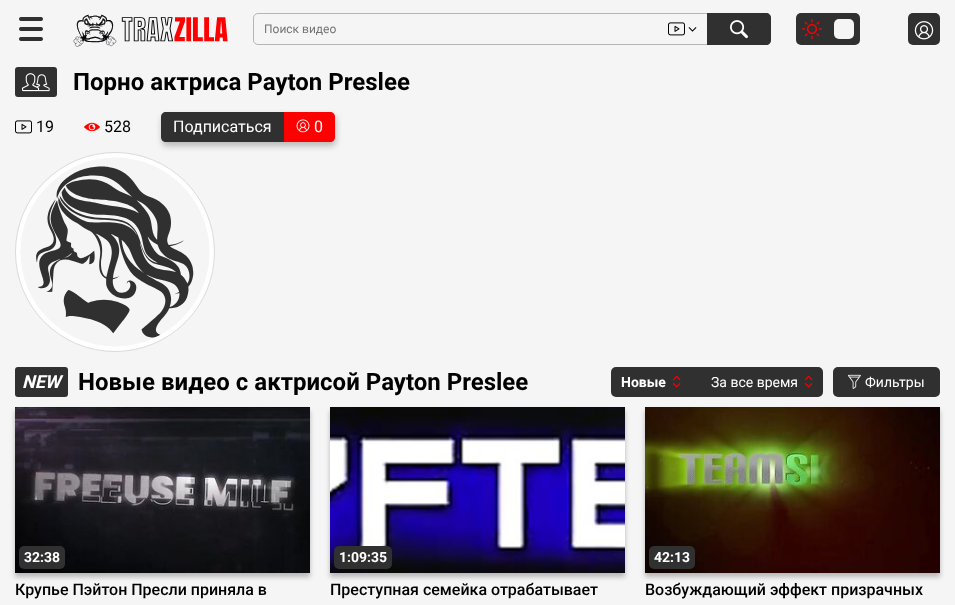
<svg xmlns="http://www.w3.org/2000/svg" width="955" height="605">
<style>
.a{font:12px Roboto;fill:#757575}
.b{font:bold 24px Roboto;fill:#000}
.c{font:16px Roboto;fill:#000}
.d{font:16px Roboto;fill:#fff}
.e{font:italic bold 18px Roboto;fill:#fff}
.f{font:bold 14px Roboto;fill:#fff}
.g{font:14px Roboto;fill:#fff}
.h{font:500 16px Roboto;fill:#000}
</style>
<rect width="100%" height="100%" fill="#f5f5f5"/>
<image href="1.png" x="19" y="17" width="24" height="24"/>
<image href="2.png" x="73" y="14" width="155" height="33"/>
<rect fill="none" stroke="#b5b5b5" x="253.5" y="13.5" width="517" height="31" rx="4.5"/>
<image href="3.png" x="668" y="22" width="17" height="14"/>
<image href="4.png" x="688" y="27" width="9" height="5"/>
<path fill="#303030" d="M707 13h59c3 0 5 2 5 5v22c0 3-2 5-5 5h-59z"/>
<image href="5.png" x="730" y="20" width="18" height="19"/>
<rect fill="#303030" x="796" y="13" width="64" height="32" rx="5"/>
<image href="6.png" x="802" y="19" width="20" height="20"/>
<rect fill="#f5f5f5" x="834" y="19" width="20" height="20" rx="5"/>
<rect fill="#303030" x="908" y="13" width="32" height="32" rx="5"/>
<image href="7.png" x="914" y="21" width="20" height="19"/>
<rect fill="#303030" x="15" y="67" width="42" height="30" rx="3"/>
<image href="8.png" x="22" y="73" width="28" height="19"/>
<image href="3.png" x="15" y="120" width="17" height="14"/>
<image href="9.png" x="84" y="122" width="16" height="10"/>
<rect fill="#3030304d" filter="blur(3px)" x="162" y="116" width="174" height="30" rx="5"/>
<path fill="#303030" d="M166 112h118v30h-118c-3 0-5-2-5-5v-20c0-3 2-5 5-5z"/>
<path fill="#f00" d="M284 112h46c3 0 5 2 5 5v20c0 3-2 5-5 5h-46z"/>
<image href="10.png" x="296" y="119" width="14" height="14"/>
<circle fill="#fff" stroke="#dbdbdb" cx="115" cy="252" r="99.5"/>
<image href="11.png" x="20" y="157" width="190" height="190"/>
<rect fill="#303030" x="15" y="367" width="53" height="30" rx="3"/>
<rect fill="#303030" x="611" y="367" width="212" height="30" rx="5"/>
<image href="12.png" x="673" y="375" width="8" height="13"/>
<image href="12.png" x="805" y="375" width="8" height="13"/>
<rect fill="#303030" x="833" y="367" width="107" height="30" rx="5"/>
<image href="13.png" x="848" y="374" width="13" height="15"/>
<path fill="#00000040" filter="blur(2.5px)" d="M15 411h295v166H15z"/>
<image href="14.png" x="15" y="407" width="295" height="166"/>
<rect fill="#303030" x="19" y="546" width="46" height="23" rx="5"/>
<path fill="#00000040" filter="blur(2.5px)" d="M330 411h295v166H330z"/>
<image href="15.png" x="330" y="407" width="295" height="166"/>
<rect fill="#303030" x="334" y="546" width="58" height="23" rx="5"/>
<path fill="#00000040" filter="blur(2.5px)" d="M645 411h295v166H645z"/>
<image href="16.png" x="645" y="407" width="295" height="166"/>
<rect fill="#303030" x="649" y="546" width="46" height="23" rx="5"/>
<text class="a" x="264" y="33">Поиск видео</text>
<text class="b" x="73" y="90">Порно актриса Payton Preslee</text>
<text class="c" x="36" y="132">19</text>
<text class="c" x="104" y="132">528</text>
<text class="d" x="173" y="132">Подписаться</text>
<text class="d" x="314" y="132">0</text>
<text class="e" x="22" y="388">NEW</text>
<text class="b" x="78" y="390">Новые видео с актрисой Payton Preslee</text>
<text class="f" x="621" y="387">Новые</text>
<text class="g" x="711" y="387">За все время</text>
<text class="g" x="865" y="387">Фильтры</text>
<text class="f" x="24" y="562">32:38</text>
<text class="h" x="15" y="595">Крупье Пэйтон Пресли приняла в</text>
<text class="f" x="339" y="562">1:09:35</text>
<text class="h" x="330" y="595">Преступная семейка отрабатывает</text>
<text class="f" x="654" y="562">42:13</text>
<text class="h" x="645" y="595">Возбуждающий эффект призрачных</text>
</svg>
